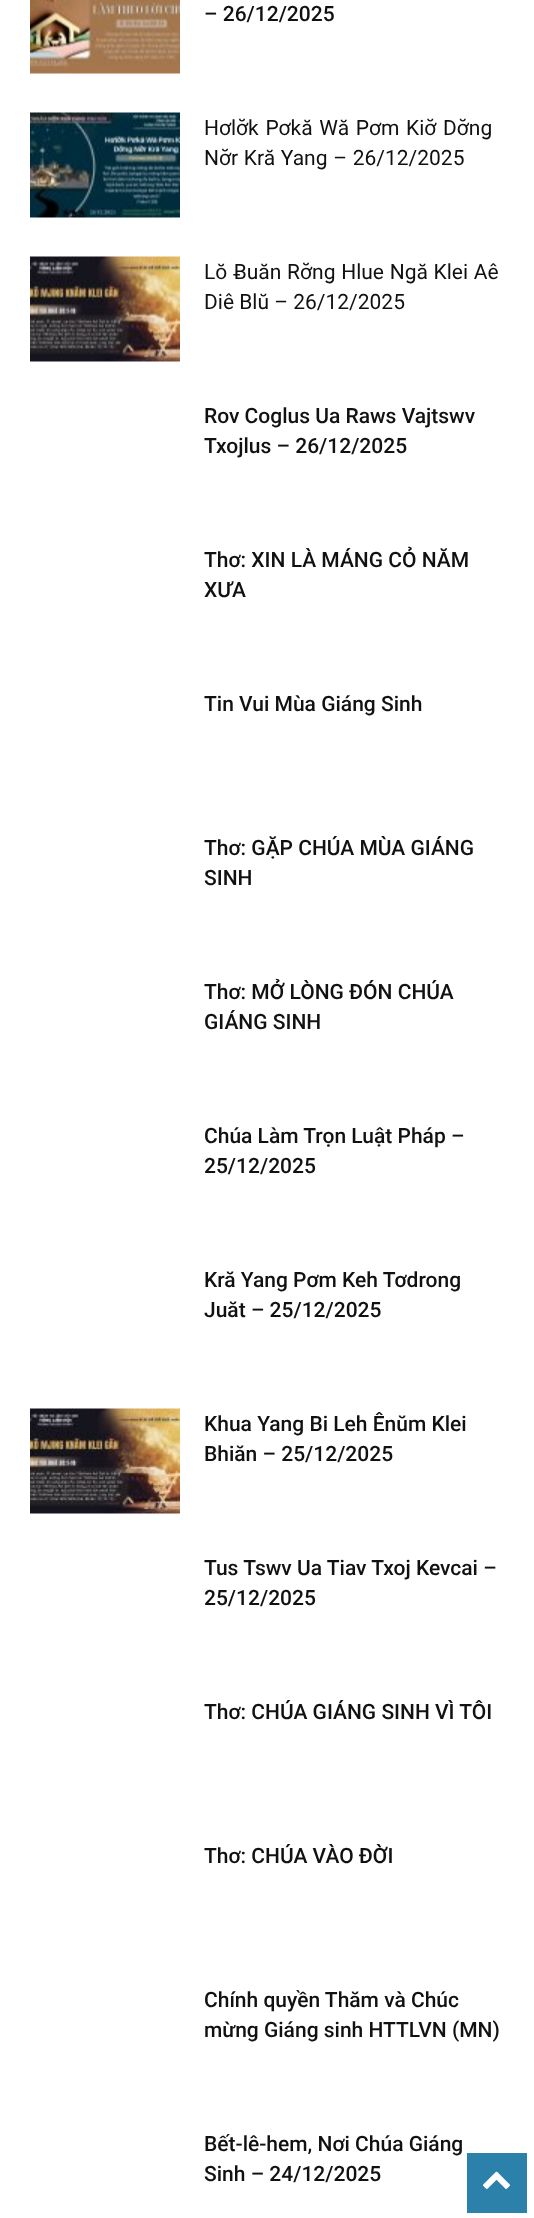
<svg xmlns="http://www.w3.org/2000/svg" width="534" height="2218">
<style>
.a{font:500 21px Roboto;fill:#111}
.b{font:21px Roboto;fill:#111}
</style>
<rect width="100%" height="100%" fill="#fff"/>
<image href="1.png" x="30" y="0" width="150" height="74"/>
<image href="2.png" x="30" y="112" width="150" height="106"/>
<image href="3.png" x="30" y="256" width="150" height="106"/>
<image href="4.png" x="30" y="1408" width="150" height="106"/>
<path fill="#2c81ab" d="M467 2153h60v60H467z"/>
<image href="5.png" x="483" y="2171" width="27" height="18"/>
<text class="a" x="204" y="21">– 26/12/2025</text>
<text class="b" x="204" y="135" word-spacing="1.5">Hơlơ̆k Pơkă Wă Pơm Kiơ̆ Dơ̆ng</text>
<text class="b" x="204" y="165" word-spacing="0.5">Nơ̆r Kră Yang – 26/12/2025</text>
<text class="b" x="204" y="279" word-spacing="0.5">Lŏ Ƀuăn Rơ̆ng Hlue Ngă Klei Aê</text>
<text class="b" x="204" y="309">Diê Blŭ – 26/12/2025</text>
<text class="a" x="204" y="423">Rov Coglus Ua Raws Vajtswv</text>
<text class="a" x="204" y="453">Txojlus – 26/12/2025</text>
<text class="a" x="204" y="567">Thơ: XIN LÀ MÁNG CỎ NĂM</text>
<text class="a" x="204" y="597">XƯA</text>
<text class="a" x="204" y="711">Tin Vui Mùa Giáng Sinh</text>
<text class="a" x="204" y="855">Thơ: GẶP CHÚA MÙA GIÁNG</text>
<text class="a" x="204" y="885">SINH</text>
<text class="a" x="204" y="999">Thơ: MỞ LÒNG ĐÓN CHÚA</text>
<text class="a" x="204" y="1029">GIÁNG SINH</text>
<text class="a" x="204" y="1143">Chúa Làm Trọn Luật Pháp –</text>
<text class="a" x="204" y="1173">25/12/2025</text>
<text class="a" x="204" y="1287">Kră Yang Pơm Keh Tơdrong</text>
<text class="a" x="204" y="1317">Juăt – 25/12/2025</text>
<text class="a" x="204" y="1431">Khua Yang Bi Leh Ênŭm Klei</text>
<text class="a" x="204" y="1461">Bhiăn – 25/12/2025</text>
<text class="a" x="204" y="1575">Tus Tswv Ua Tiav Txoj Kevcai –</text>
<text class="a" x="204" y="1605">25/12/2025</text>
<text class="a" x="204" y="1719">Thơ: CHÚA GIÁNG SINH VÌ TÔI</text>
<text class="a" x="204" y="1863">Thơ: CHÚA VÀO ĐỜI</text>
<text class="a" x="204" y="2007">Chính quyền Thăm và Chúc</text>
<text class="a" x="204" y="2037">mừng Giáng sinh HTTLVN (MN)</text>
<text class="a" x="204" y="2151">Bết-lê-hem, Nơi Chúa Giáng</text>
<text class="a" x="204" y="2181">Sinh – 24/12/2025</text>
</svg>
